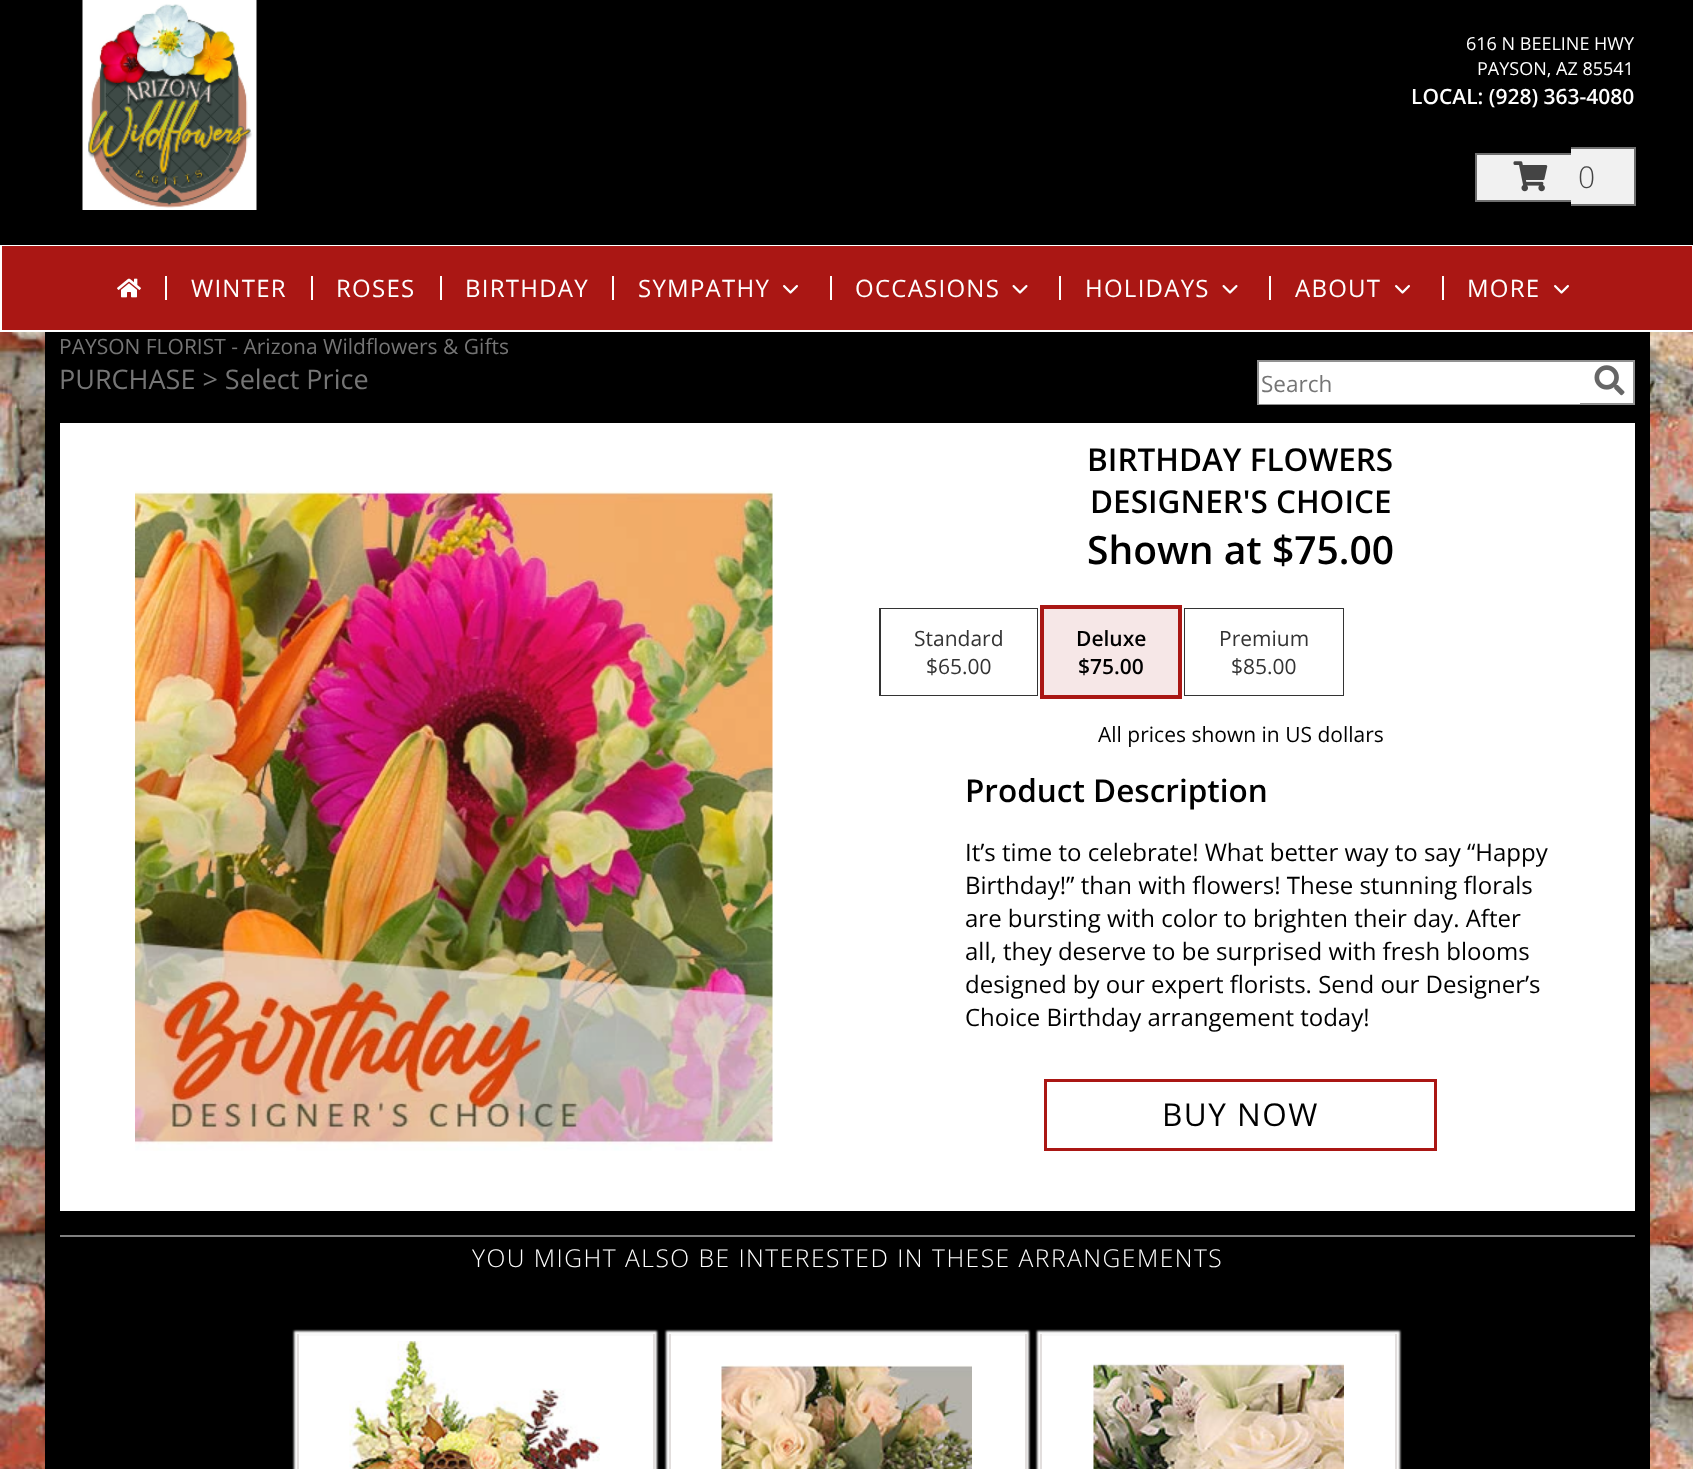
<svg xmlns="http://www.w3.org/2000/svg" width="1693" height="1469">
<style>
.a{font:18px Open Sans;fill:#fff}
.b{font:600 21px Open Sans;fill:#fff}
.c{font:300 30px Open Sans;fill:#444}
.d{font:24px Open Sans;letter-spacing:1.25px;fill:#fff}
.e{font:21px Open Sans;fill:#757575}
.f{font:27px Open Sans;fill:#757575}
.g{font:22.5px Open Sans;fill:#757575}
.h{font:600 31.5px Open Sans;fill:#000}
.i{font:600 39px Open Sans;fill:#000}
.j{font:21px Open Sans;fill:#333}
.k{font:600 21px Open Sans;fill:#000}
.l{font:21px Open Sans;fill:#000}
.m{font:24px Open Sans;fill:#000}
.n{font:31.5px Open Sans;letter-spacing:1.5px;fill:#000}
.o{font:300 24.6px Open Sans;letter-spacing:1.5px;fill:#fff}
</style>
<rect width="100%" height="100%" fill="#fff"/>
<image href="1.png" x="0" y="332" width="1693" height="1137"/>
<path fill="#000" d="M45 332h1605v1137H45z"/>
<path fill="#000" d="M0 0h1693v245H0z"/>
<image href="2.png" x="82" y="0" width="175" height="210"/>
<path fill="#f1f1f1" d="M1477 155h94v45H1477z"/>
<path fill="#6e6e6e" d="M1475 153h96v2H1475z"/>
<path fill="#6e6e6e" d="M1475 200h96v2H1475z"/>
<path fill="#6e6e6e" d="M1475 153h2v48H1475z"/>
<path fill="#f1f1f1" d="M1571 147h7v59H1571z"/>
<path fill="#6e6e6e" d="M1571 147h64v2H1571z"/>
<path fill="#6e6e6e" d="M1571 204h7v2H1571z"/>
<path fill="#f1f1f1" d="M1578 149h56v55H1578z"/>
<path fill="#6e6e6e" d="M1634 147h2v59H1634z"/>
<path fill="#6e6e6e" d="M1578 204h57v2H1578z"/>
<image href="3.png" x="1513" y="161" width="35" height="31"/>
<path fill="#aa1714" d="M2 246h1690v84H2z"/>
<image href="4.png" x="117" y="278" width="24" height="20"/>
<path fill="#fff" d="M165 276h2v24H165z"/>
<path fill="#fff" d="M311 276h2v24H311z"/>
<path fill="#fff" d="M440 276h2v24H440z"/>
<path fill="#fff" d="M612 276h2v24H612z"/>
<image href="5.png" x="783" y="285" width="15" height="9"/>
<path fill="#fff" d="M830 276h2v24H830z"/>
<image href="6.png" x="1012" y="285" width="16" height="9"/>
<path fill="#fff" d="M1059 276h2v24H1059z"/>
<image href="6.png" x="1222" y="285" width="16" height="9"/>
<path fill="#fff" d="M1269 276h2v24H1269z"/>
<image href="5.png" x="1395" y="285" width="15" height="9"/>
<path fill="#fff" d="M1442 276h2v24H1442z"/>
<image href="5.png" x="1554" y="285" width="15" height="9"/>
<path fill="#fff" d="M1580 362h53v41H1580z"/>
<path fill="none" stroke="#919191" stroke-width="2" d="M1258 361h376v43H1258z"/>
<path fill="#fff" d="M1259 362h321v42H1259z"/>
<image href="7.png" x="1594" y="365" width="31" height="31"/>
<path fill="#fff" d="M60 423h1575v788H60z"/>
<image href="8.png" x="135" y="490" width="638" height="661"/>
<path fill="none" stroke="#333" stroke-width="2" d="M880 609h157v86H880z"/>
<path fill="#fff" d="M881 609h156v86H881z"/>
<path fill="none" stroke="#aa1714" stroke-width="5" d="M1042.5 607.5h137v89H1042.5z"/>
<path fill="#f6e7e7" d="M1044 609h134v86H1044z"/>
<path fill="none" stroke="#333" stroke-width="2" d="M1185 609h158v86H1185z"/>
<path fill="#fff" d="M1185 609h158v86H1185z"/>
<path fill="none" stroke="#aa1714" stroke-width="3" d="M1045.5 1080.5h390v69H1045.5z"/>
<path fill="#808080" d="M60 1235h1575v2H60z"/>
<path fill="#f9f9f9" filter="blur(1px)" d="M294 1331h363v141H294z"/>
<path fill="#fff" d="M299 1336h354v133H299z"/>
<path fill="#e2dedd" d="M653 1334h2v135H653z"/>
<path fill="#e2dedd" d="M297 1334h2v135H297z"/>
<image href="9.png" x="349" y="1341" width="251" height="128"/>
<path fill="#f9f9f9" filter="blur(1px)" d="M666 1331h363v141H666z"/>
<path fill="#fff" d="M671 1336h354v133H671z"/>
<path fill="#e2dedd" d="M1025 1334h2v135H1025z"/>
<path fill="#e2dedd" d="M669 1334h2v135H669z"/>
<image href="10.png" x="721" y="1365" width="251" height="104"/>
<path fill="#f9f9f9" filter="blur(1px)" d="M1037 1331h363v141H1037z"/>
<path fill="#fff" d="M1042 1336h353v133H1042z"/>
<path fill="#e2dedd" d="M1395 1334h2v135H1395z"/>
<path fill="#e2dedd" d="M1040 1334h2v135H1040z"/>
<image href="11.png" x="1093" y="1363" width="251" height="106"/>
<text class="a" x="1466" y="50">616 N BEELINE HWY</text>
<text class="a" x="1477" y="75">PAYSON, AZ 85541</text>
<text class="b" x="1411" y="104">LOCAL: (928) 363-4080</text>
<text class="c" x="1578" y="188">0</text>
<text class="d" x="191" y="297">WINTER</text>
<text class="d" x="336" y="297">ROSES</text>
<text class="d" x="465" y="297">BIRTHDAY</text>
<text class="d" x="638" y="297">SYMPATHY</text>
<text class="d" x="855" y="297">OCCASIONS</text>
<text class="d" x="1085" y="297">HOLIDAYS</text>
<text class="d" x="1295" y="297">ABOUT</text>
<text class="d" x="1467" y="297">MORE</text>
<text class="e" x="59" y="354">PAYSON FLORIST - Arizona Wildflowers &amp; Gifts</text>
<text class="f" x="59" y="389">PURCHASE &gt; Select Price</text>
<text class="g" x="1261" y="392">Search</text>
<text class="h" x="1087" y="471">BIRTHDAY FLOWERS</text>
<text class="h" x="1090" y="513">DESIGNER'S CHOICE</text>
<text class="i" x="1087" y="564">Shown at $75.00</text>
<text class="j" x="914" y="646">Standard</text>
<text class="j" x="926" y="674">$65.00</text>
<text class="k" x="1076" y="646">Deluxe</text>
<text class="k" x="1078" y="674">$75.00</text>
<text class="j" x="1219" y="646">Premium</text>
<text class="j" x="1231" y="674">$85.00</text>
<text class="l" x="1098" y="742">All prices shown in US dollars</text>
<text class="h" x="965" y="802">Product Description</text>
<text class="m" x="965" y="861">It’s time to celebrate! What better way to say “Happy</text>
<text class="m" x="965" y="894">Birthday!” than with flowers! These stunning florals</text>
<text class="m" x="965" y="927">are bursting with color to brighten their day. After</text>
<text class="m" x="965" y="960">all, they deserve to be surprised with fresh blooms</text>
<text class="m" x="965" y="993">designed by our expert florists. Send our Designer’s</text>
<text class="m" x="965" y="1026">Choice Birthday arrangement today!</text>
<text class="n" x="1162" y="1126">BUY NOW</text>
<text class="o" x="472" y="1267">YOU MIGHT ALSO BE INTERESTED IN THESE ARRANGEMENTS</text>
</svg>
